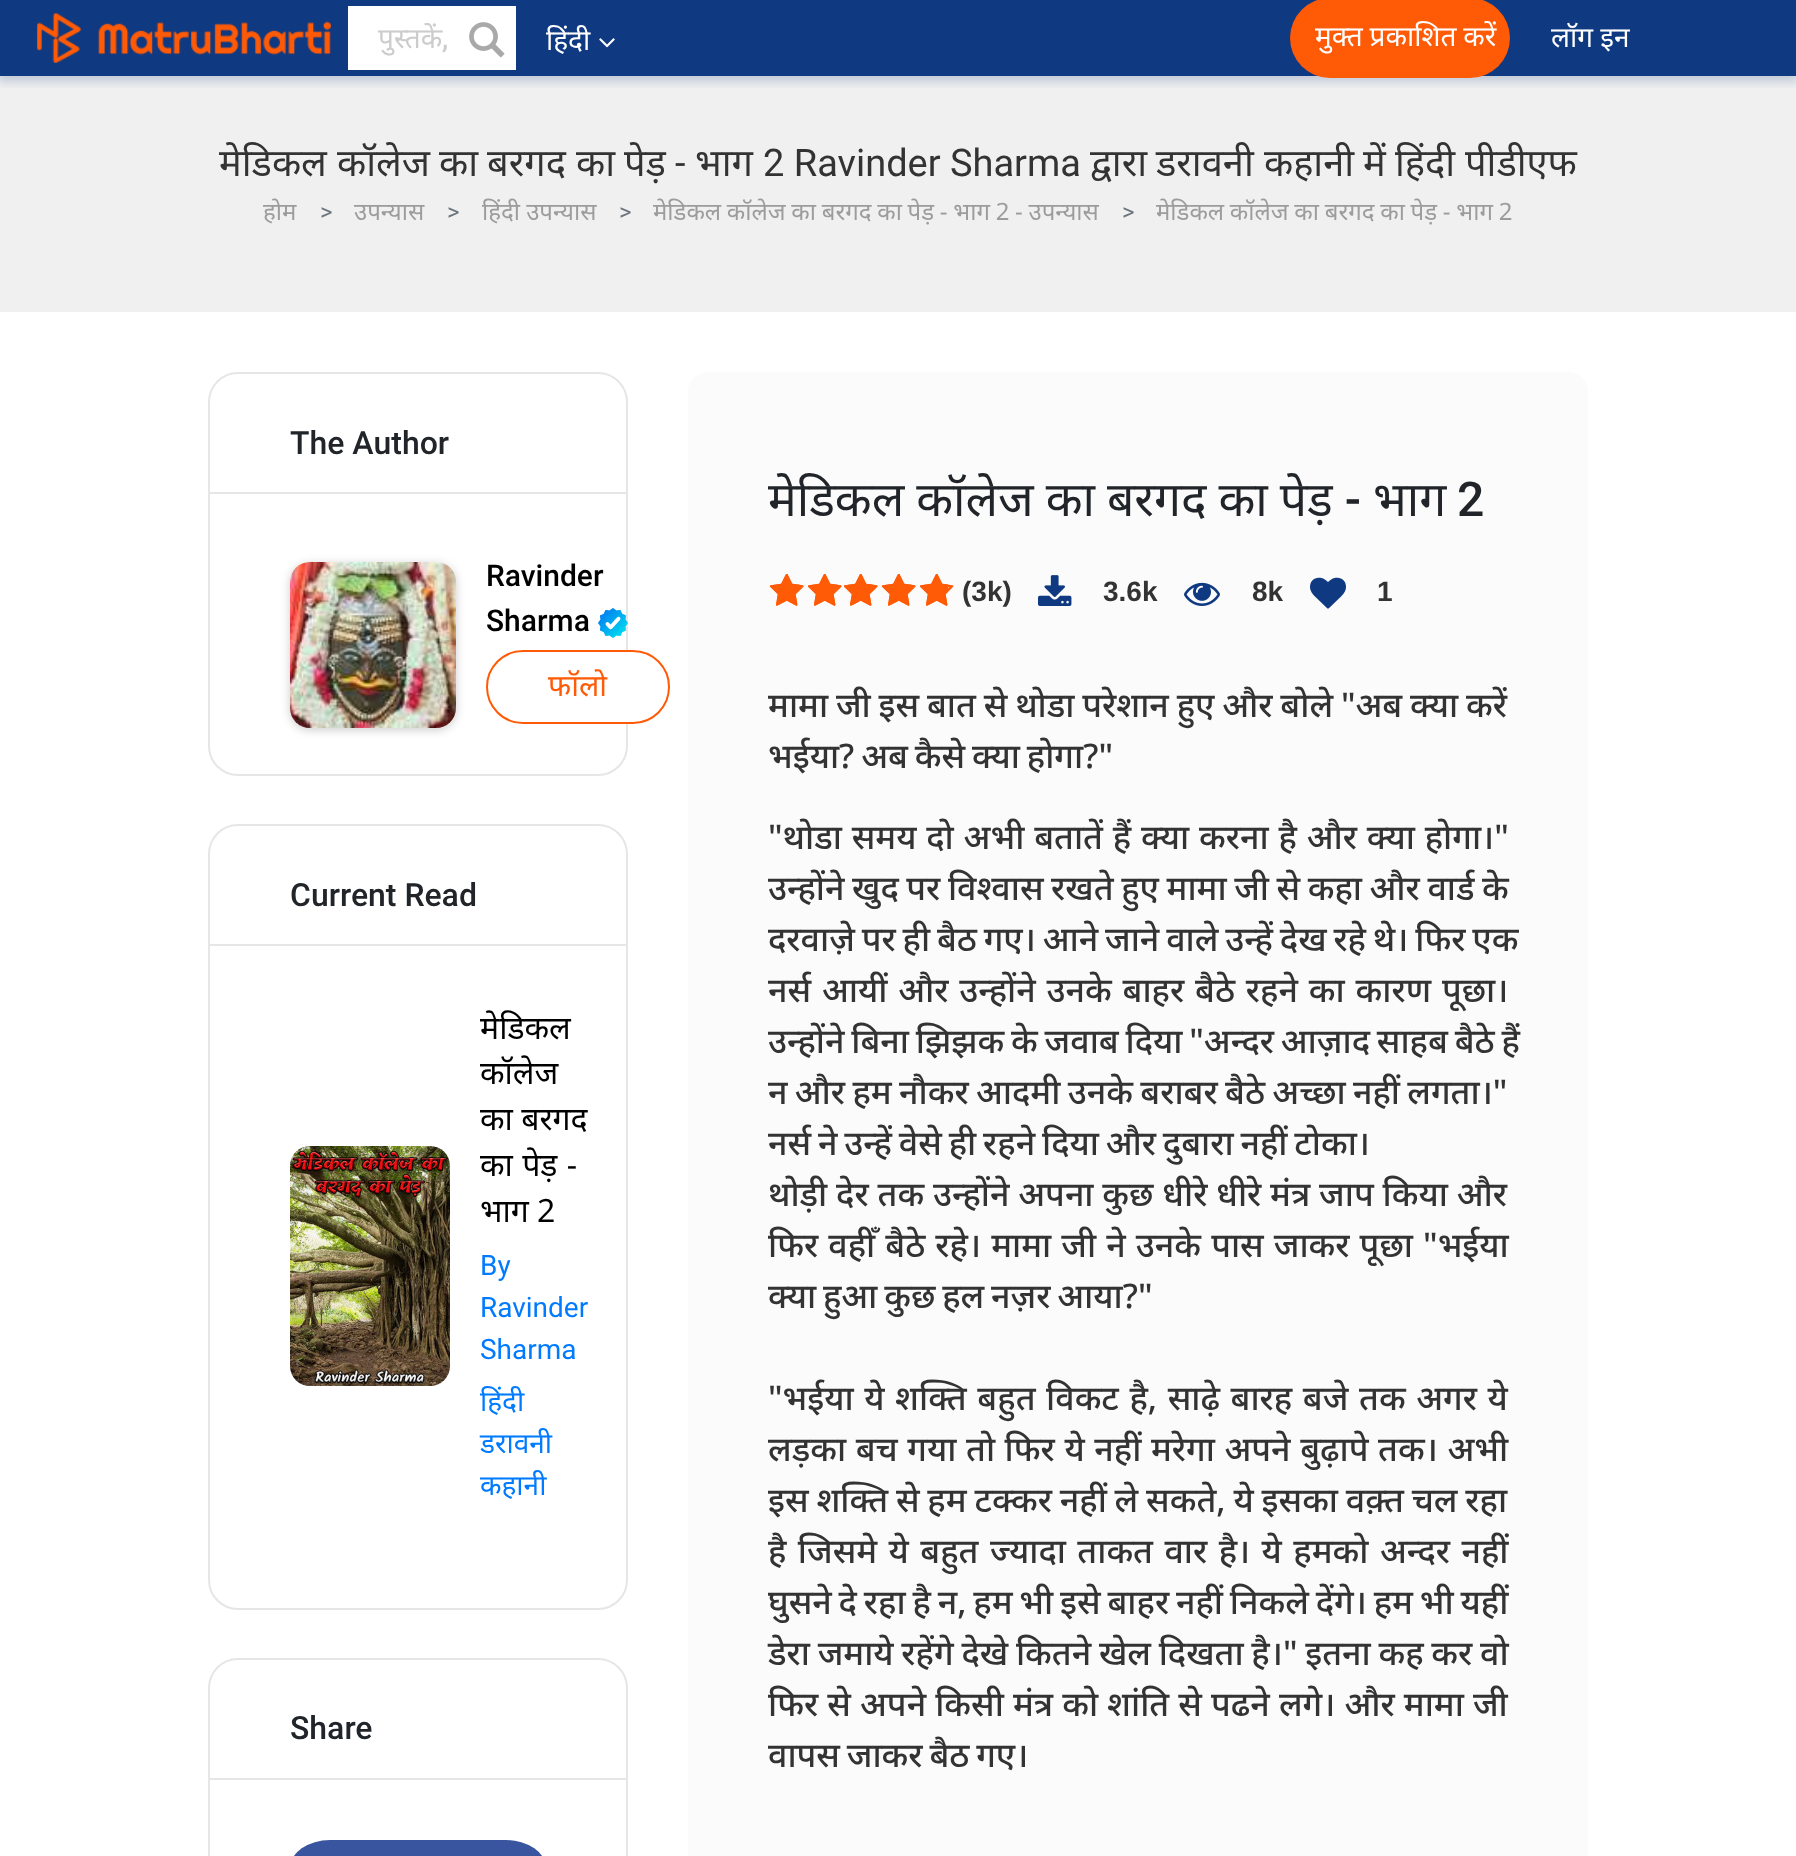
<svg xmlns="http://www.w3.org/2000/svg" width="1796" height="1856">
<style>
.a{font:28px Noto Sans;fill:#ccc}
.b{font:500 28px Roboto;fill:#ccc}
.c{font:28px Noto Sans;fill:#fff}
.d{font:38px Noto Sans;fill:#333}
.e{font:38px Roboto;fill:#333}
.f{font:24px Noto Sans;fill:#9c9c9c}
.g{font:24px Roboto;fill:#6c757d}
.h{font:500 32px Roboto;fill:#212529}
.i{font:500 30px Roboto;fill:#000}
.j{font:30px Noto Sans;fill:#ff5a06}
.k{font:32px Noto Sans;fill:#000}
.l{font:28px Roboto;fill:#007bff}
.m{font:28px Noto Sans;fill:#007bff}
.n{font:48px Noto Sans;fill:#212529}
.o{font:500 48px Roboto;fill:#212529}
.p{font:bold 28px Liberation Sans;fill:#333}
.q{font:500 34px Noto Sans;fill:#333}
</style>
<defs>
<clipPath id="clip1"><path d="M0 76h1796v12H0z"/></clipPath>
<clipPath id="clip2"><path d="M372 18h90v38H372z"/></clipPath>
<clipPath id="clip3"><path d="M208 136h1380v116H208z"/></clipPath>
</defs>
<rect width="100%" height="100%" fill="#fff"/>
<path fill="#0f3981" d="M0 0h1796v76H0z"/>
<path fill="#f0f0f0" d="M0 76h1796v236H0z"/>
<g clip-path="url(#clip1)">
<path fill="#0f398133" filter="blur(5px)" d="M-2 2h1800v80H-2z"/>
</g>
<image href="1.png" x="37" y="13" width="294" height="50"/>
<path fill="#fff" d="M348 6h168v64H348z"/>
<image href="2.png" x="469" y="22" width="36" height="36"/>
<image href="3.png" x="599" y="38" width="16" height="10"/>
<rect fill="#ff5a06" x="1290" y="-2" width="220" height="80" rx="40"/>
<rect fill="none" stroke="#e6e6e6" stroke-width="2" x="209" y="373" width="418" height="402" rx="29"/>
<path fill="#e6e6e6" d="M210 492h416v2H210z"/>
<rect fill="#00000033" filter="blur(5px)" x="290" y="564" width="166" height="166" rx="20"/>
<image href="4.png" x="290" y="562" width="166" height="166"/>
<image href="5.png" x="598" y="608" width="30" height="30"/>
<rect fill="#fff" stroke="#ff5a06" stroke-width="2" x="487" y="651" width="182" height="72" rx="36"/>
<rect fill="none" stroke="#e6e6e6" stroke-width="2" x="209" y="825" width="418" height="784" rx="29"/>
<path fill="#e6e6e6" d="M210 944h416v2H210z"/>
<image href="6.png" x="290" y="1146" width="160" height="240"/>
<rect fill="none" stroke="#e6e6e6" stroke-width="2" x="209" y="1659" width="418" height="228" rx="29"/>
<path fill="#e6e6e6" d="M210 1778h416v2H210z"/>
<rect fill="#3a559f" x="290" y="1840" width="256" height="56" rx="40"/>
<rect fill="#fbfbfb" x="688" y="372" width="900" height="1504" rx="20"/>
<image href="7.png" x="770" y="574" width="34" height="32"/>
<image href="7.png" x="808" y="574" width="34" height="32"/>
<image href="7.png" x="844" y="574" width="34" height="32"/>
<image href="7.png" x="882" y="574" width="34" height="32"/>
<image href="7.png" x="920" y="574" width="34" height="32"/>
<image href="8.png" x="770" y="574" width="34" height="32"/>
<image href="8.png" x="808" y="574" width="34" height="32"/>
<image href="8.png" x="844" y="574" width="34" height="32"/>
<image href="8.png" x="882" y="574" width="34" height="32"/>
<image href="9.png" x="920" y="574" width="28" height="32"/>
<image href="10.png" x="1038" y="575" width="34" height="31"/>
<image href="11.png" x="1184" y="582" width="36" height="24"/>
<image href="12.png" x="1310" y="577" width="36" height="32"/>
<g clip-path="url(#clip2)">
<text class="a" x="378" y="48">पुस्तकें</text>
</g>
<text class="b" x="442" y="48">,</text>
<text class="c" x="546" y="50">हिंदी</text>
<text class="c" x="1315" y="46" word-spacing="-0.5">मुक्त प्रकाशित करें</text>
<text class="c" x="1551" y="47">लॉग इन</text>
<g clip-path="url(#clip3)">
<text class="d" x="219" y="176">मेडिकल</text>
</g>
<text class="d" x="337" y="176">कॉलेज</text>
<text class="d" x="439" y="176">का</text>
<text class="d" x="487" y="176">बरगद</text>
<text class="d" x="576" y="176">का</text>
<text class="d" x="624" y="176">पेड़</text>
<text class="e" x="675" y="176">-</text>
<text class="d" x="695" y="176">भाग</text>
<text class="e" x="763" y="176">2 Ravinder Sharma</text>
<text class="d" x="1090" y="176">द्वारा</text>
<text class="d" x="1156" y="176">डरावनी</text>
<text class="d" x="1264" y="176">कहानी</text>
<text class="d" x="1363" y="176">में</text>
<text class="d" x="1395" y="176">हिंदी</text>
<text class="d" x="1465" y="176">पीडीएफ</text>
<text class="f" x="263" y="220">होम</text>
<text class="g" x="320" y="220">&gt;</text>
<text class="f" x="354" y="220">उपन्यास</text>
<text class="g" x="447" y="220">&gt;</text>
<text class="f" x="482" y="220">हिंदी उपन्यास</text>
<text class="g" x="619" y="220">&gt;</text>
<text class="f" x="653" y="220" word-spacing="-0.5">मेडिकल कॉलेज का बरगद का पेड़ - भाग 2 - उपन्यास</text>
<text class="g" x="1122" y="220">&gt;</text>
<text class="f" x="1156" y="220" word-spacing="-0.5">मेडिकल कॉलेज का बरगद का पेड़ - भाग 2</text>
<text class="h" x="290" y="454">The Author</text>
<text class="i" x="486" y="586">Ravinder</text>
<text class="i" x="486" y="631">Sharma</text>
<text class="j" x="548" y="696">फॉलो</text>
<text class="h" x="290" y="906">Current Read</text>
<text class="k" x="480" y="1039">मेडिकल</text>
<text class="k" x="480" y="1084">कॉलेज</text>
<text class="k" x="480" y="1130">का बरगद</text>
<text class="k" x="480" y="1176" word-spacing="1">का पेड़ -</text>
<text class="k" x="480" y="1222">भाग 2</text>
<text class="l" x="480" y="1275">By</text>
<text class="l" x="480" y="1317">Ravinder</text>
<text class="l" x="480" y="1359">Sharma</text>
<text class="m" x="480" y="1411">हिंदी</text>
<text class="m" x="480" y="1453">डरावनी</text>
<text class="m" x="480" y="1495">कहानी</text>
<text class="h" x="290" y="1739">Share</text>
<text class="n" x="768" y="516" word-spacing="-0.5">मेडिकल कॉलेज का बरगद का पेड़</text>
<text class="o" x="1345" y="516">-</text>
<text class="n" x="1373" y="516">भाग</text>
<text class="o" x="1457" y="516">2</text>
<text class="p" x="962" y="601">(3k)</text>
<text class="p" x="1103" y="601">3.6k</text>
<text class="p" x="1252" y="601">8k</text>
<text class="p" x="1377" y="601">1</text>
<text class="q" x="768" y="717" word-spacing="-1">मामा जी इस बात से थोडा परेशान हुए और बोले "अब क्या करें</text>
<text class="q" x="768" y="768" word-spacing="-2">भईया? अब कैसे क्या होगा?"</text>
<text class="q" x="768" y="849" word-spacing="1">"थोडा समय दो अभी बतातें हैं क्या करना है और क्या होगा।"</text>
<text class="q" x="768" y="900" word-spacing="-1.25">उन्होंने खुद पर विश्वास रखते हुए मामा जी से कहा और वार्ड के</text>
<text class="q" x="768" y="951" word-spacing="-2">दरवाज़े पर ही बैठ गए। आने जाने वाले उन्हें देख रहे थे। फिर एक</text>
<text class="q" x="768" y="1002" word-spacing="2">नर्स आयीं और उन्होंने उनके बाहर बैठे रहने का कारण पूछा।</text>
<text class="q" x="768" y="1053" word-spacing="-2">उन्होंने बिना झिझक के जवाब दिया "अन्दर आज़ाद साहब बैठे हैं</text>
<text class="q" x="768" y="1104" word-spacing="-1.5">न और हम नौकर आदमी उनके बराबर बैठे अच्छा नहीं लगता।"</text>
<text class="q" x="768" y="1155" word-spacing="-2">नर्स ने उन्हें वेसे ही रहने दिया और दुबारा नहीं टोका।</text>
<text class="q" x="768" y="1206">थोड़ी देर तक उन्होंने अपना कुछ धीरे धीरे मंत्र जाप किया और</text>
<text class="q" x="768" y="1257" word-spacing="1.25">फिर वहीँ बैठे रहे। मामा जी ने उनके पास जाकर पूछा "भईया</text>
<text class="q" x="768" y="1308" word-spacing="-2">क्या हुआ कुछ हल नज़र आया?"</text>
<text class="q" x="768" y="1410" word-spacing="1.75">"भईया ये शक्ति बहुत विकट है, साढ़े बारह बजे तक अगर ये</text>
<text class="q" x="768" y="1461" word-spacing="0.75">लड़का बच गया तो फिर ये नहीं मरेगा अपने बुढ़ापे तक। अभी</text>
<text class="q" x="768" y="1512" word-spacing="-1">इस शक्ति से हम टक्कर नहीं ले सकते, ये इसका वक़्त चल रहा</text>
<text class="q" x="768" y="1563" word-spacing="2.6">है जिसमे ये बहुत ज्यादा ताकत वार है। ये हमको अन्दर नहीं</text>
<text class="q" x="768" y="1614" word-spacing="-2">घुसने दे रहा है न, हम भी इसे बाहर नहीं निकले देंगे। हम भी यहीं</text>
<text class="q" x="768" y="1665" word-spacing="-1.1">डेरा जमाये रहेंगे देखे कितने खेल दिखता है।" इतना कह कर वो</text>
<text class="q" x="768" y="1716" word-spacing="0.25">फिर से अपने किसी मंत्र को शांति से पढने लगे। और मामा जी</text>
<text class="q" x="768" y="1767" word-spacing="-2">वापस जाकर बैठ गए।</text>
</svg>
